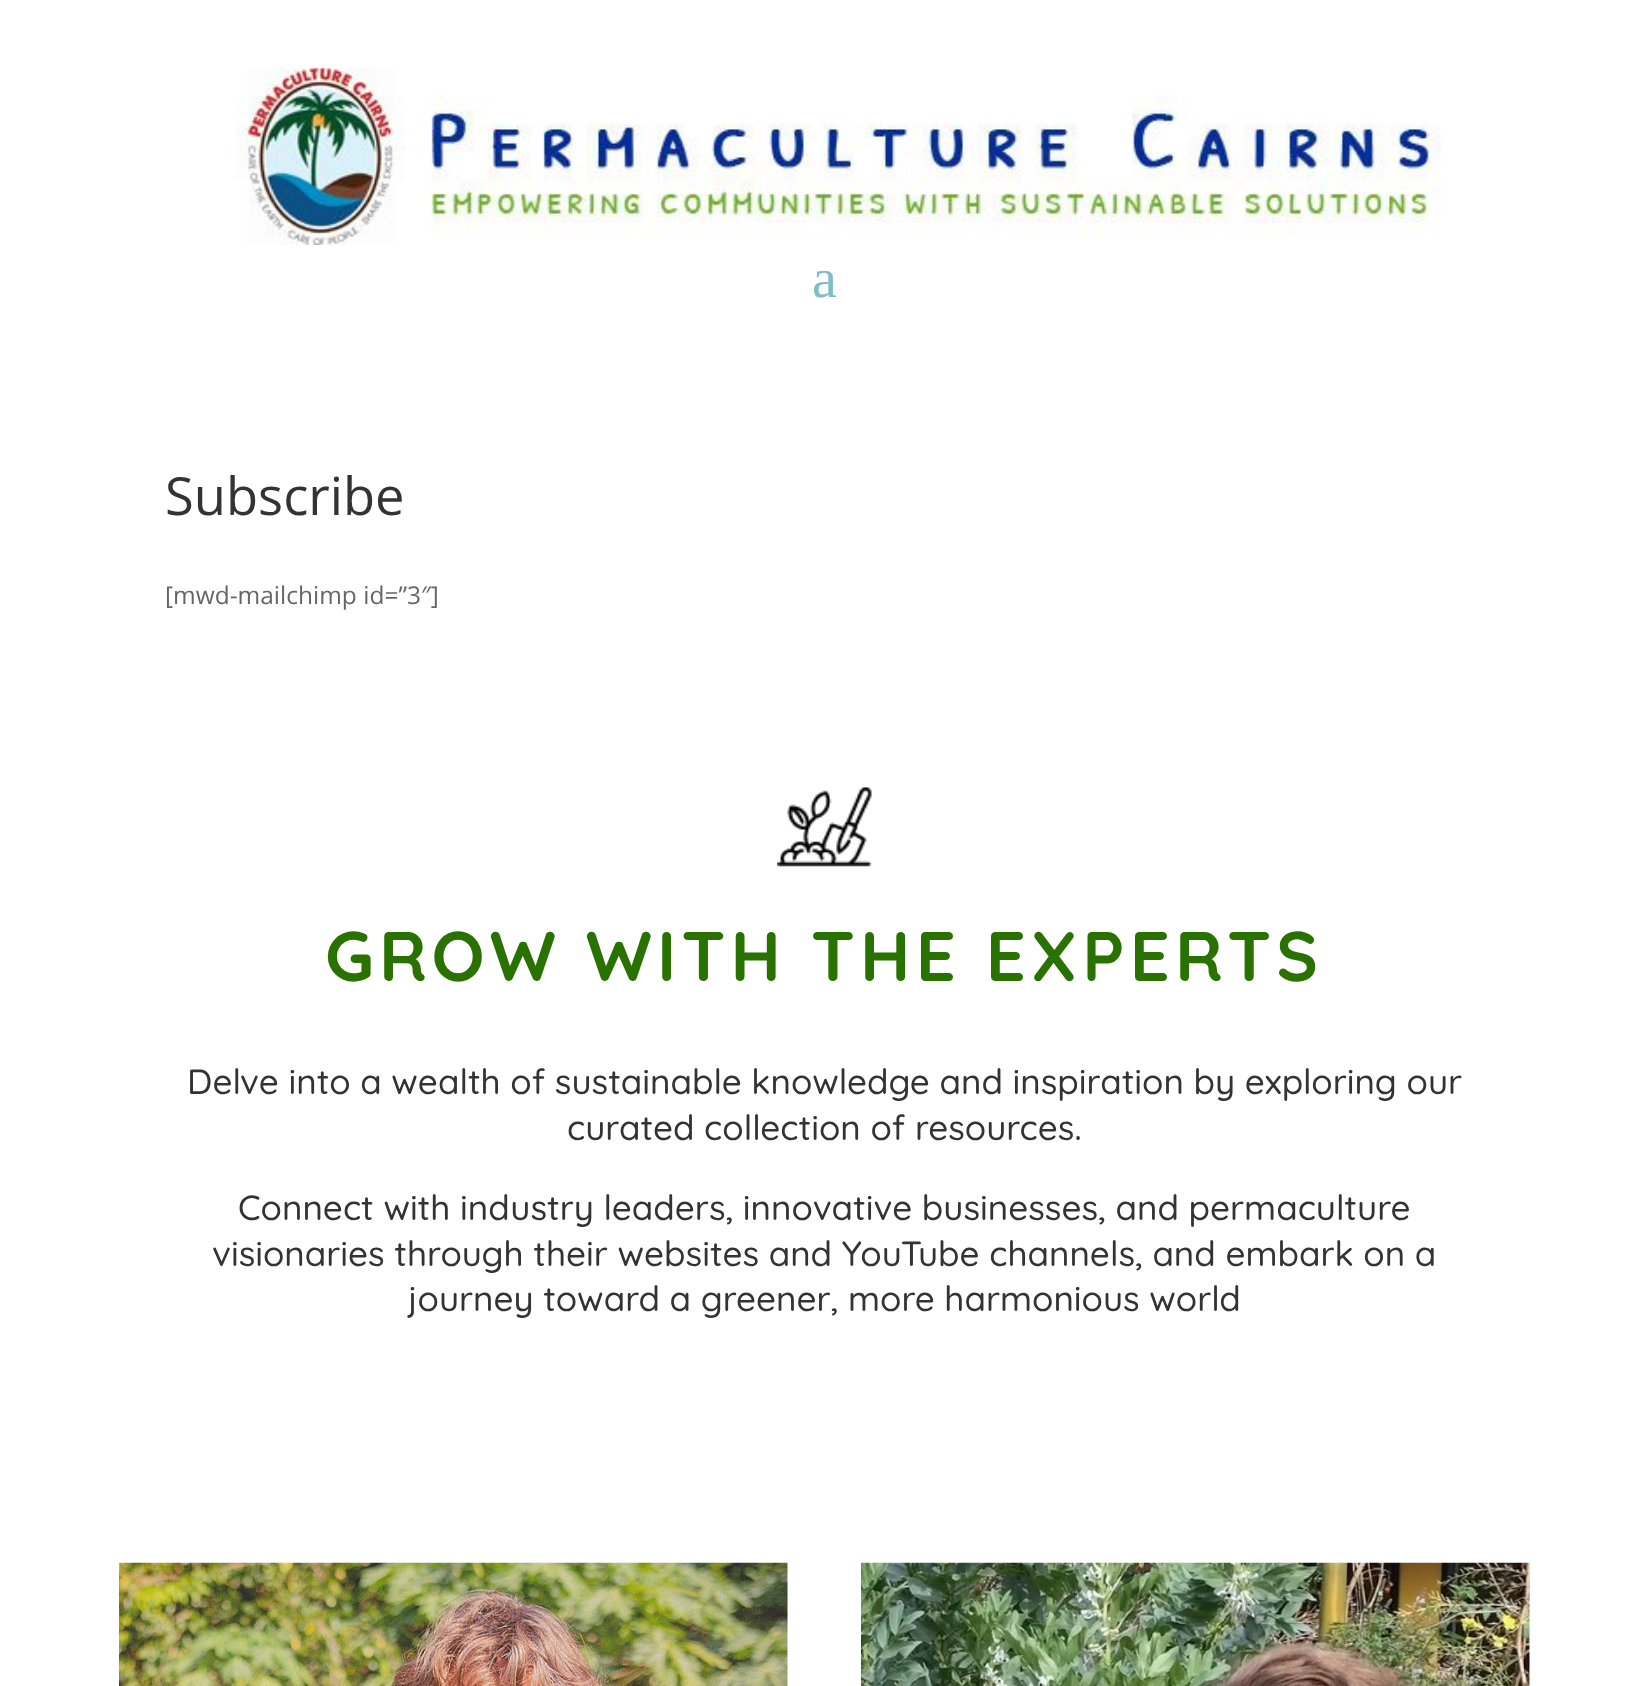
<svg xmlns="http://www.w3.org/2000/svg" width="1648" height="1686">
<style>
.a{font:56px Liberation Serif;fill:#7ebec5}
.b{font:52.5px Open Sans;fill:#333}
.c{font:24.5px Open Sans;fill:#666}
.d{font:bold 70px Quicksand;letter-spacing:5.25px;fill:#2a7200}
.e{font:500 35px Quicksand;fill:#333}
</style>
<rect width="100%" height="100%" fill="#fff"/>
<image href="1.png" x="236" y="68" width="1206" height="177"/>
<image href="2.png" x="777" y="787" width="95" height="80"/>
<image href="3.png" x="119" y="1562" width="669" height="124"/>
<image href="4.png" x="861" y="1562" width="669" height="124"/>
<text class="a" x="812" y="297">a</text>
<text class="b" x="165" y="515">Subscribe</text>
<text class="c" x="165" y="604">[mwd-mailchimp id=”3″]</text>
<text class="d" x="325" y="981">GROW WITH THE EXPERTS</text>
<text class="e" x="187" y="1094">Delve into a wealth of sustainable knowledge and inspiration by exploring our</text>
<text class="e" x="567" y="1140">curated collection of resources.</text>
<text class="e" x="238" y="1220">Connect with industry leaders, innovative businesses, and permaculture</text>
<text class="e" x="212" y="1266">visionaries through their websites and YouTube channels, and embark on a</text>
<text class="e" x="408" y="1311">journey toward a greener, more harmonious world</text>
</svg>
